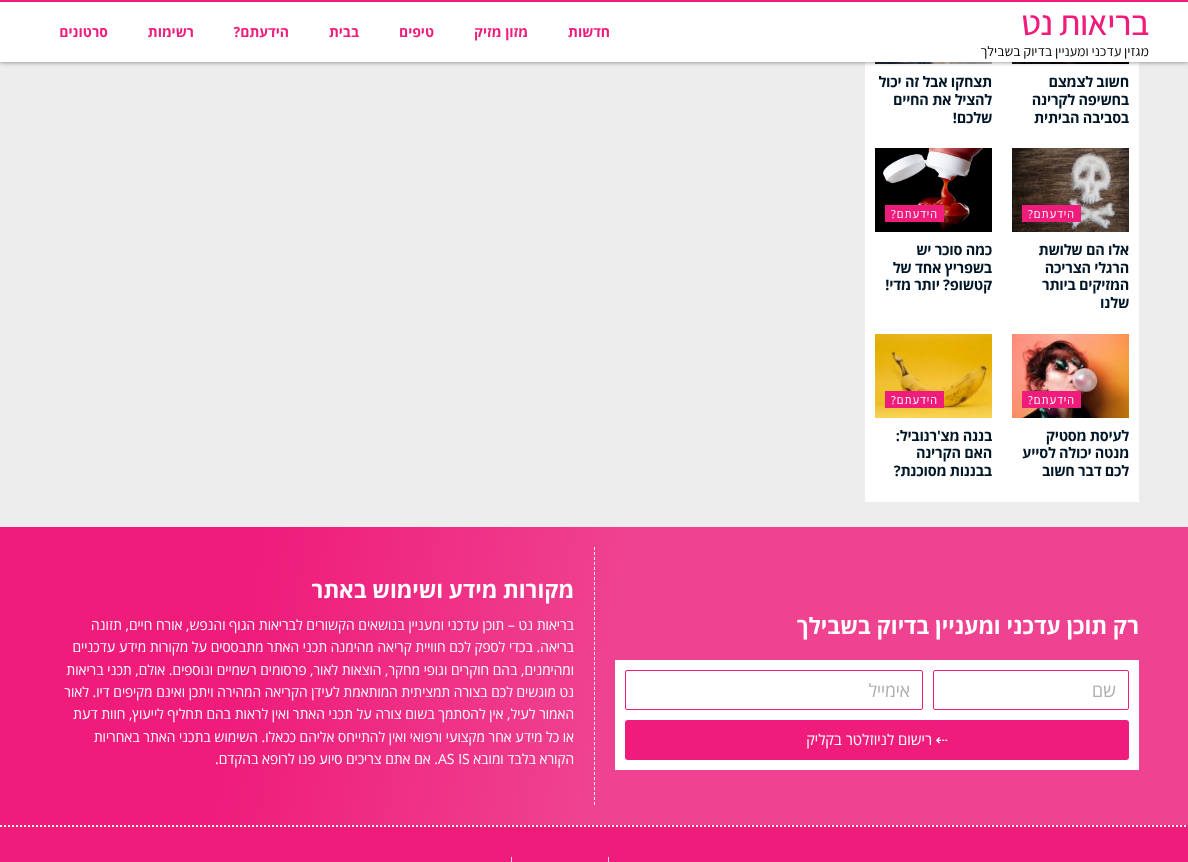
<svg xmlns="http://www.w3.org/2000/svg" width="1188" height="862">
<style>
.a{font:500 35px Assistant;letter-spacing:-0.5px;direction:rtl;fill:#ef1c7b}
.b{font:14px Assistant;direction:rtl;fill:#000}
.c{font:bold 14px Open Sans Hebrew;direction:rtl;fill:#ef1c7b}
.d{font:bold 14.5px Open Sans Hebrew;letter-spacing:-0.25px;direction:rtl;fill:#011627}
.e{font:11px Open Sans Hebrew;letter-spacing:1px;direction:rtl;fill:#fff}
.f{font:bold 22.4px Open Sans Hebrew;direction:rtl;fill:#fff}
.g{font:18px Open Sans Hebrew;direction:rtl;fill:#afafaf}
.h{font:15px DejaVu Sans;direction:rtl;fill:#fff}
.i{font:15px Open Sans Hebrew;direction:rtl;fill:#fff}
.j{font:14px Open Sans Hebrew;direction:rtl;fill:#fff}
.k{font:14px Open Sans Hebrew;fill:#fff}
</style>
<defs>
<linearGradient id="g1" gradientUnits="userSpaceOnUse" x1="-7.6" y1="570" x2="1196" y2="782"><stop offset="0.21" stop-color="#ef1c7b"/><stop offset="0.51" stop-color="#ef4290"/></linearGradient>
</defs>
<rect width="100%" height="100%" fill="#ededed"/>
<path fill="#fff" d="M865 62h274v440H865z"/>
<image href="1.png" x="1012" y="62" width="117" height="2"/>
<image href="2.png" x="875" y="62" width="117" height="2"/>
<path fill="#00000080" filter="blur(2.5px)" d="M0 0h1188v62H0z"/>
<path fill="#fff" d="M0 2h1188v60H0z"/>
<path fill="#ef1c7b" d="M0 0h1188v2H0z"/>
<image href="3.png" x="1012" y="148" width="117" height="84"/>
<path fill="#ef1c7b" d="M1022 205h59v17H1022z"/>
<image href="4.png" x="875" y="148" width="117" height="84"/>
<path fill="#ef1c7b" d="M885 205h59v17H885z"/>
<image href="5.png" x="1012" y="334" width="117" height="84"/>
<path fill="#ef1c7b" d="M1022 391h59v17H1022z"/>
<image href="6.png" x="875" y="334" width="117" height="84"/>
<path fill="#ef1c7b" d="M885 391h59v17H885z"/>
<path fill="url(#g1)" d="M0 527h1188v298H0z"/>
<path fill="none" stroke="#fff" stroke-dasharray="3 2" d="M594.5 547v258"/>
<path fill="#fff" d="M615 660h524v110H615z"/>
<rect fill="none" stroke="#ef1c7b" x="933.5" y="670.5" width="195" height="39" rx="1.5"/>
<rect fill="none" stroke="#ef1c7b" x="625.5" y="670.5" width="297" height="39" rx="1.5"/>
<rect fill="#ef1c7b" x="625" y="720" width="504" height="40" rx="3"/>
<path fill="#ef1c7b" d="M0 825h1188v37H0z"/>
<path fill="none" stroke="#fff" stroke-width="2" stroke-dasharray="2 2" d="M0 826h1188"/>
<path fill="#ddd" d="M608 857h1v5H608z"/>
<path fill="#ddd" d="M511 857h1v5H511z"/>
<text class="a" x="1149" y="35">בריאות נט</text>
<text class="b" x="1149" y="56">מגזין עדכני ומעניין בדיוק בשבילך</text>
<text class="c" x="610" y="37">חדשות</text>
<text class="c" x="528" y="37">מזון מזיק</text>
<text class="c" x="434" y="37">טיפים</text>
<text class="c" x="359" y="37">בבית</text>
<text class="c" x="289" y="37">הידעתם?</text>
<text class="c" x="194" y="37">רשימות</text>
<text class="c" x="108" y="37">סרטונים</text>
<text class="d" x="1129" y="87">חשוב לצמצם</text>
<text class="d" x="1129" y="105">בחשיפה לקרינה</text>
<text class="d" x="1129" y="123">בסביבה הביתית</text>
<text class="d" x="992" y="87">תצחקו אבל זה יכול</text>
<text class="d" x="992" y="105">להציל את החיים</text>
<text class="d" x="992" y="123">שלכם!</text>
<text class="e" x="1075" y="218">הידעתם?</text>
<text class="d" x="1129" y="255">אלו הם שלושת</text>
<text class="d" x="1129" y="273">הרגלי הצריכה</text>
<text class="d" x="1129" y="290">המזיקים ביותר</text>
<text class="d" x="1129" y="308">שלנו</text>
<text class="e" x="938" y="218">הידעתם?</text>
<text class="d" x="992" y="255">כמה סוכר יש</text>
<text class="d" x="992" y="273">בשפריץ אחד של</text>
<text class="d" x="992" y="290">קטשופ? יותר מדי!</text>
<text class="e" x="1075" y="404">הידעתם?</text>
<text class="d" x="1129" y="441">לעיסת מסטיק</text>
<text class="d" x="1129" y="458">מנטה יכולה לסייע</text>
<text class="d" x="1129" y="476">לכם דבר חשוב</text>
<text class="e" x="938" y="404">הידעתם?</text>
<text class="d" x="992" y="441">בננה מצ'רנוביל:</text>
<text class="d" x="992" y="458">האם הקרינה</text>
<text class="d" x="992" y="476">בבננות מסוכנת?</text>
<text class="f" x="1139" y="634">רק תוכן עדכני ומעניין בדיוק בשבילך</text>
<text class="g" x="1116" y="697">שם</text>
<text class="g" x="910" y="697">אימייל</text>
<text class="h" x="948" y="745">⇠</text>
<text class="i" x="932" y="745">רישום לניוזלטר בקליק</text>
<text class="f" x="574" y="598">מקורות מידע ושימוש באתר</text>
<text class="j" x="574" y="630">בריאות נט – תוכן עדכני ומעניין בנושאים הקשורים לבריאות הגוף והנפש, אורח חיים, תזונה</text>
<text class="j" x="574" y="652">בריאה. בכדי לספק לכם חוויית קריאה מהימנה תכני האתר מתבססים על מקורות מידע עדכניים</text>
<text class="j" x="574" y="675">ומהימנים, בהם חוקרים וגופי מחקר, הוצאות לאור, פרסומים רשמיים ונוספים. אולם, תכני בריאות</text>
<text class="j" x="574" y="697">נט מוגשים לכם בצורה תמציתית המותאמת לעידן הקריאה המהירה ויתכן ואינם מקיפים דיו. לאור</text>
<text class="j" x="574" y="719">האמור לעיל, אין להסתמך בשום צורה על תכני האתר ואין לראות בהם תחליף לייעוץ, חוות דעת</text>
<text class="j" x="574" y="742">או כל מידע אחר מקצועי ורפואי ואין להתייחס אליהם ככאלו. השימוש בתכני האתר באחריות</text>
<text class="j" x="574" y="764">הקורא בלבד ומובא</text>
<text class="k" x="438" y="764">AS IS</text>
<text class="j" x="438" y="764">. אם אתם צריכים סיוע פנו לרופא בהקדם.</text>
</svg>
